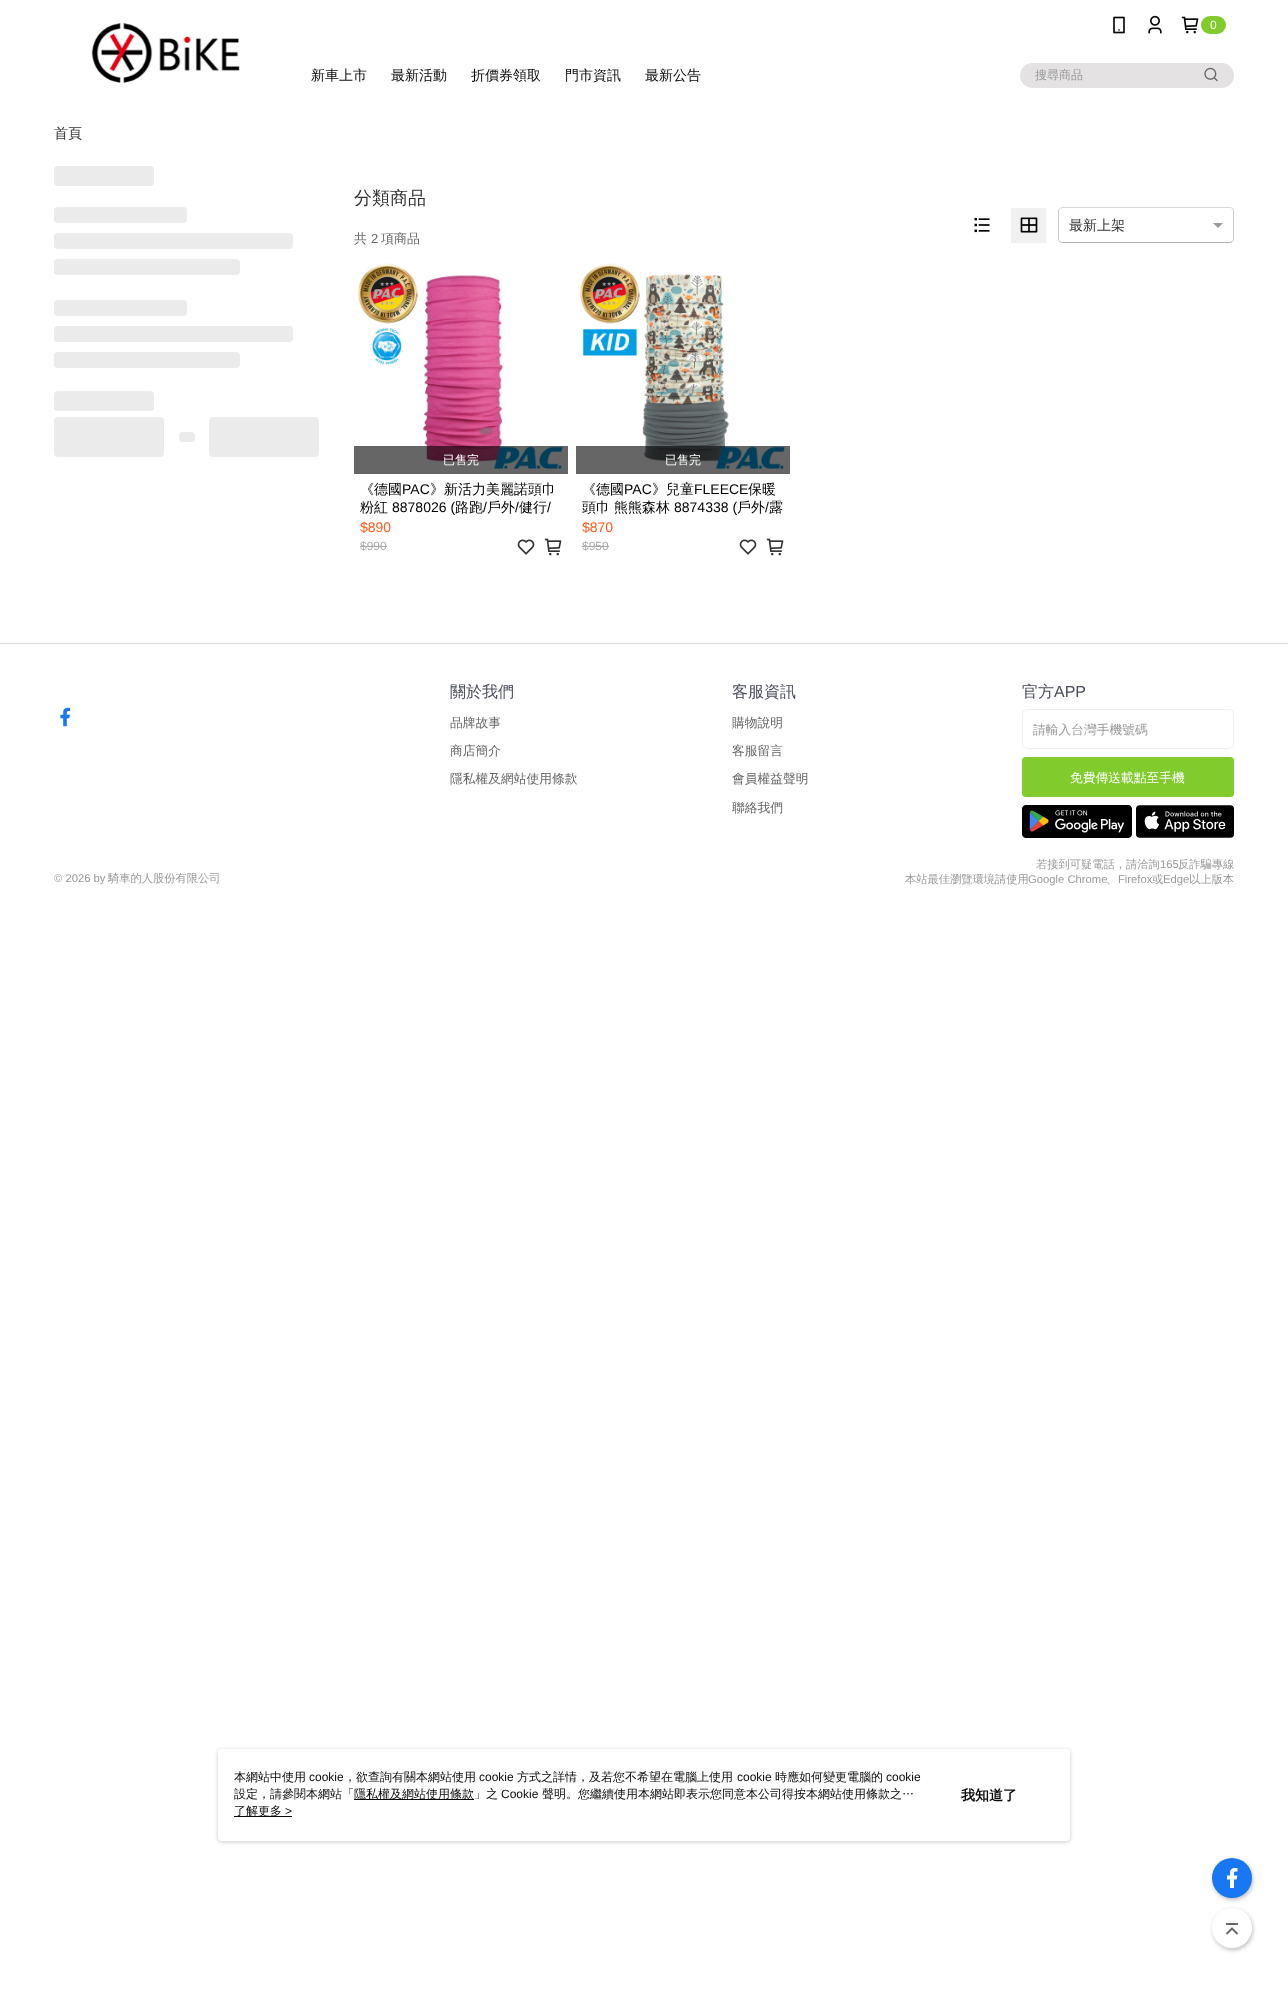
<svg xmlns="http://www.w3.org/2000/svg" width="1288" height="1994">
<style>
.a{font:12px Liberation Sans;fill:#fff}
.b{font:500 14px WenQuanYi Zen Hei;fill:#090909}
.c{font:500 12px WenQuanYi Zen Hei;fill:#999}
.d{font:500 14px WenQuanYi Zen Hei;fill:#333}
.e{font:500 18px WenQuanYi Zen Hei;fill:#333}
.f{font:500 13px WenQuanYi Zen Hei;fill:#666}
.g{font:13px Liberation Sans;fill:#666}
.h{font:500 12px WenQuanYi Zen Hei;fill:#fff}
.i{font:500 14px WenQuanYi Zen Hei;fill:#000}
.j{font:14px Liberation Sans;fill:#000}
.k{font:14px Liberation Sans;fill:#ff5919}
.l{font:12px Liberation Sans;fill:#aaa}
.m{font:500 16px WenQuanYi Zen Hei;fill:#4a4e5c}
.n{font:500 12.75px WenQuanYi Zen Hei;fill:#666}
.o{font:16px Liberation Sans;fill:#4a4e5c}
.p{font:500 12.75px WenQuanYi Zen Hei;fill:#999}
.q{font:500 12.75px WenQuanYi Zen Hei;fill:#fff}
.r{font:500 11.25px WenQuanYi Zen Hei;fill:#999}
.s{font:11.25px Liberation Sans;fill:#999}
.t{font:500 12px WenQuanYi Zen Hei;fill:#090909}
.u{font:12px Liberation Sans;fill:#090909}
.v{font:bold 14px WenQuanYi Zen Hei;fill:#090909}
</style>
<defs>
<clipPath id="clip1"><rect x="54" y="207" width="133" height="16" rx="4"/></clipPath>
<linearGradient id="g1" gradientUnits="userSpaceOnUse" x1="-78" y1="215" x2="55" y2="215"><stop offset="0" stop-color="#ebebeb"/><stop offset="0.5" stop-color="#f5f5f5"/><stop offset="1" stop-color="#ebebeb"/></linearGradient>
<clipPath id="clip2"><rect x="54" y="233" width="239" height="16" rx="4"/></clipPath>
<linearGradient id="g2" gradientUnits="userSpaceOnUse" x1="-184" y1="241" x2="55" y2="241"><stop offset="0" stop-color="#ebebeb"/><stop offset="0.5" stop-color="#f5f5f5"/><stop offset="1" stop-color="#ebebeb"/></linearGradient>
<clipPath id="clip3"><rect x="54" y="259" width="186" height="16" rx="4"/></clipPath>
<linearGradient id="g3" gradientUnits="userSpaceOnUse" x1="-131" y1="267" x2="55" y2="267"><stop offset="0" stop-color="#ebebeb"/><stop offset="0.5" stop-color="#f5f5f5"/><stop offset="1" stop-color="#ebebeb"/></linearGradient>
<clipPath id="clip4"><rect x="54" y="300" width="133" height="16" rx="4"/></clipPath>
<linearGradient id="g4" gradientUnits="userSpaceOnUse" x1="-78" y1="308" x2="55" y2="308"><stop offset="0" stop-color="#ebebeb"/><stop offset="0.5" stop-color="#f5f5f5"/><stop offset="1" stop-color="#ebebeb"/></linearGradient>
<clipPath id="clip5"><rect x="54" y="326" width="239" height="16" rx="4"/></clipPath>
<linearGradient id="g5" gradientUnits="userSpaceOnUse" x1="-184" y1="334" x2="55" y2="334"><stop offset="0" stop-color="#ebebeb"/><stop offset="0.5" stop-color="#f5f5f5"/><stop offset="1" stop-color="#ebebeb"/></linearGradient>
<clipPath id="clip6"><rect x="54" y="352" width="186" height="16" rx="4"/></clipPath>
<linearGradient id="g6" gradientUnits="userSpaceOnUse" x1="-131" y1="360" x2="55" y2="360"><stop offset="0" stop-color="#ebebeb"/><stop offset="0.5" stop-color="#f5f5f5"/><stop offset="1" stop-color="#ebebeb"/></linearGradient>
<clipPath id="clip7"><path d="M1033 722h200v17H1033z"/></clipPath>
</defs>
<rect width="100%" height="100%" fill="#fff"/>
<image href="1.png" x="91" y="23" width="149" height="60"/>
<image href="2.png" x="1113" y="16" width="12" height="18"/>
<image href="3.png" x="1148" y="15" width="14" height="19"/>
<image href="4.png" x="1181" y="16" width="18" height="18"/>
<rect fill="#81cb2d" x="1201" y="16" width="25" height="18" rx="9"/>
<rect fill="#e4e2e2" x="1020" y="63" width="214" height="25" rx="12.5"/>
<image href="5.png" x="1204" y="67" width="14" height="15"/>
<rect fill="#00000040" filter="blur(2px)" x="1213" y="1860" width="40" height="40" rx="20"/>
<circle fill="#1877f2" cx="1232" cy="1878" r="20"/>
<image href="6.png" x="1227" y="1868" width="11" height="20"/>
<rect fill="#00000040" filter="blur(2px)" x="1213" y="1910" width="40" height="40" rx="20"/>
<circle fill="#fff" cx="1232" cy="1928" r="20"/>
<image href="7.png" x="1225" y="1923" width="14" height="12"/>
<rect fill="#ebebeb" x="54" y="166" width="100" height="20" rx="4"/>
<rect fill="#ebebeb" x="54" y="207" width="133" height="16" rx="4"/>
<g clip-path="url(#clip1)">
<path fill="url(#g1)" d="M54 207h1v16H54z"/>
</g>
<rect fill="#ebebeb" x="54" y="233" width="239" height="16" rx="4"/>
<g clip-path="url(#clip2)">
<path fill="url(#g2)" d="M54 233h1v16H54z"/>
</g>
<rect fill="#ebebeb" x="54" y="259" width="186" height="16" rx="4"/>
<g clip-path="url(#clip3)">
<path fill="url(#g3)" d="M54 259h1v16H54z"/>
</g>
<rect fill="#ebebeb" x="54" y="300" width="133" height="16" rx="4"/>
<g clip-path="url(#clip4)">
<path fill="url(#g4)" d="M54 300h1v16H54z"/>
</g>
<rect fill="#ebebeb" x="54" y="326" width="239" height="16" rx="4"/>
<g clip-path="url(#clip5)">
<path fill="url(#g5)" d="M54 326h1v16H54z"/>
</g>
<rect fill="#ebebeb" x="54" y="352" width="186" height="16" rx="4"/>
<g clip-path="url(#clip6)">
<path fill="url(#g6)" d="M54 352h1v16H54z"/>
</g>
<rect fill="#ebebeb" x="54" y="391" width="100" height="20" rx="4"/>
<rect fill="#ebebeb" x="54" y="417" width="110" height="40" rx="4"/>
<rect fill="#ebebeb" x="179" y="432" width="16" height="10" rx="4"/>
<rect fill="#ebebeb" x="209" y="417" width="110" height="40" rx="4"/>
<image href="8.png" x="974" y="217" width="16" height="16"/>
<path fill="#f0f0f0" d="M1011 208h35v35H1011z"/>
<image href="9.png" x="1020" y="217" width="18" height="16"/>
<path fill="none" stroke="#d9d9d9" d="M1059.5 208.5l2.5-1h168.5l2 1"/>
<path fill="none" stroke="#ccc" d="M1232.5 208.5c.5 .5 1 1.5 1 2.5v28c0 1-.5 2-1 2.5"/>
<path fill="none" stroke="#b3b3b3" d="M1232.5 241.5l-2.5 1h-168.5l-2-1"/>
<path fill="none" stroke="#ccc" d="M1059.5 241.5c-.5-.5-1-1.5-1-2.5v-28c0-1 .5-2 1-2.5"/>
<path fill="#999" d="M1213 223h10l-5 5z"/>
<image href="10.png" x="358" y="263" width="205" height="206"/>
<path fill="#00000099" d="M354 446h214v28H354z"/>
<path fill="#aaa" d="M360 546h27v1H360z"/>
<image href="11.png" x="517" y="539" width="18" height="16"/>
<image href="12.png" x="544" y="538" width="18" height="18"/>
<image href="13.png" x="580" y="263" width="205" height="206"/>
<path fill="#00000099" d="M576 446h214v28H576z"/>
<path fill="#aaa" d="M582 546h27v1H582z"/>
<image href="11.png" x="739" y="539" width="18" height="16"/>
<image href="12.png" x="766" y="538" width="18" height="18"/>
<path fill="#dadada" d="M0 643h1288v1H0z"/>
<image href="14.png" x="60" y="707" width="11" height="20"/>
<rect fill="none" stroke="#ededed" x="1022.5" y="709.5" width="211" height="39" rx="4.5"/>
<rect fill="#81cb2d" x="1022" y="757" width="212" height="40" rx="4"/>
<image href="15.png" x="1022" y="805" width="110" height="33"/>
<image href="16.png" x="1136" y="805" width="98" height="33"/>
<rect fill="#97979780" filter="blur(2px)" x="218" y="1750" width="852" height="92" rx="4"/>
<rect fill="#fff" x="218" y="1749" width="852" height="92" rx="4"/>
<path fill="#090909" d="M354 1799h120v1H354z"/>
<path fill="#090909" d="M234 1816h58v1H234z"/>
<text class="a" x="1210" y="29">0</text>
<text class="b" x="311" y="80">新車上市</text>
<text class="b" x="391" y="80">最新活動</text>
<text class="b" x="471" y="80">折價券領取</text>
<text class="b" x="565" y="80">門市資訊</text>
<text class="b" x="645" y="80">最新公告</text>
<text class="c" x="1035" y="79">搜尋商品</text>
<text class="d" x="54" y="138">首頁</text>
<text class="e" x="354" y="204">分類商品</text>
<text class="d" x="1069" y="230">最新上架</text>
<text class="f" x="354" y="243">共</text>
<text class="g" x="371" y="243">2</text>
<text class="f" x="381" y="243">項商品</text>
<text class="h" x="443" y="464">已售完</text>
<text class="i" x="360" y="494">《德國</text>
<text class="j" x="402" y="494">PAC</text>
<text class="i" x="430" y="494">》新活力美麗諾頭巾</text>
<text class="i" x="360" y="512">粉紅</text>
<text class="j" x="392" y="512">8878026 (</text>
<text class="i" x="455" y="512">路跑</text>
<text class="j" x="483" y="512">/</text>
<text class="i" x="487" y="512">戶外</text>
<text class="j" x="515" y="512">/</text>
<text class="i" x="519" y="512">健行</text>
<text class="j" x="547" y="512">/</text>
<text class="k" x="360" y="532">$890</text>
<text class="l" x="360" y="550">$990</text>
<text class="h" x="665" y="464">已售完</text>
<text class="i" x="582" y="494">《德國</text>
<text class="j" x="624" y="494">PAC</text>
<text class="i" x="652" y="494">》兒童</text>
<text class="j" x="694" y="494">FLEECE</text>
<text class="i" x="748" y="494">保暖</text>
<text class="i" x="582" y="512">頭巾</text>
<text class="i" x="614" y="512">熊熊森林</text>
<text class="j" x="674" y="512">8874338 (</text>
<text class="i" x="737" y="512">戶外</text>
<text class="j" x="765" y="512">/</text>
<text class="i" x="769" y="512">露</text>
<text class="k" x="582" y="532">$870</text>
<text class="l" x="582" y="550">$950</text>
<text class="m" x="450" y="697">關於我們</text>
<text class="n" x="450" y="727">品牌故事</text>
<text class="n" x="450" y="755">商店簡介</text>
<text class="n" x="450" y="783">隱私權及網站使用條款</text>
<text class="m" x="732" y="697">客服資訊</text>
<text class="n" x="732" y="727">購物說明</text>
<text class="n" x="732" y="755">客服留言</text>
<text class="n" x="732" y="783">會員權益聲明</text>
<text class="n" x="732" y="812">聯絡我們</text>
<text class="m" x="1022" y="697">官方</text>
<text class="o" x="1054" y="697">APP</text>
<g clip-path="url(#clip7)">
<text class="p" x="1033" y="734">請輸入台灣手機號碼</text>
</g>
<text class="q" x="1070" y="782">免費傳送載點至手機</text>
<text class="r" x="1036" y="868">若接到可疑電話，請洽詢</text>
<text class="s" x="1160" y="868">165</text>
<text class="r" x="1178" y="868">反詐騙專線</text>
<text class="s" x="54" y="882">© 2026 by</text>
<text class="r" x="108" y="882">騎車的人股份有限公司</text>
<text class="r" x="905" y="883">本站最佳瀏覽環境請使用</text>
<text class="s" x="1028" y="883">Google Chrome</text>
<text class="r" x="1106" y="883">、</text>
<text class="s" x="1118" y="883">Firefox</text>
<text class="r" x="1152" y="883">或</text>
<text class="s" x="1163" y="883">Edge</text>
<text class="r" x="1189" y="883">以上版本</text>
<text class="t" x="234" y="1781">本網站中使用</text>
<text class="u" x="309" y="1781">cookie</text>
<text class="t" x="344" y="1781">，欲查詢有關本網站使用</text>
<text class="u" x="479" y="1781">cookie</text>
<text class="t" x="517" y="1781">方式之詳情，及若您不希望在電腦上使用</text>
<text class="u" x="737" y="1781">cookie</text>
<text class="t" x="775" y="1781">時應如何變更電腦的</text>
<text class="u" x="886" y="1781">cookie</text>
<text class="t" x="234" y="1798">設定，請參閱本網站「</text>
<text class="t" x="354" y="1798">隱私權及網站使用條款」之</text>
<text class="u" x="501" y="1798">Cookie</text>
<text class="t" x="542" y="1798">聲明。您繼續使用本網站即表示您同意本公司得按本網站使用條款之…</text>
<text class="t" x="234" y="1815">了解更多</text>
<text class="u" x="285" y="1815">&gt;</text>
<text class="v" x="961" y="1800">我知道了</text>
</svg>
